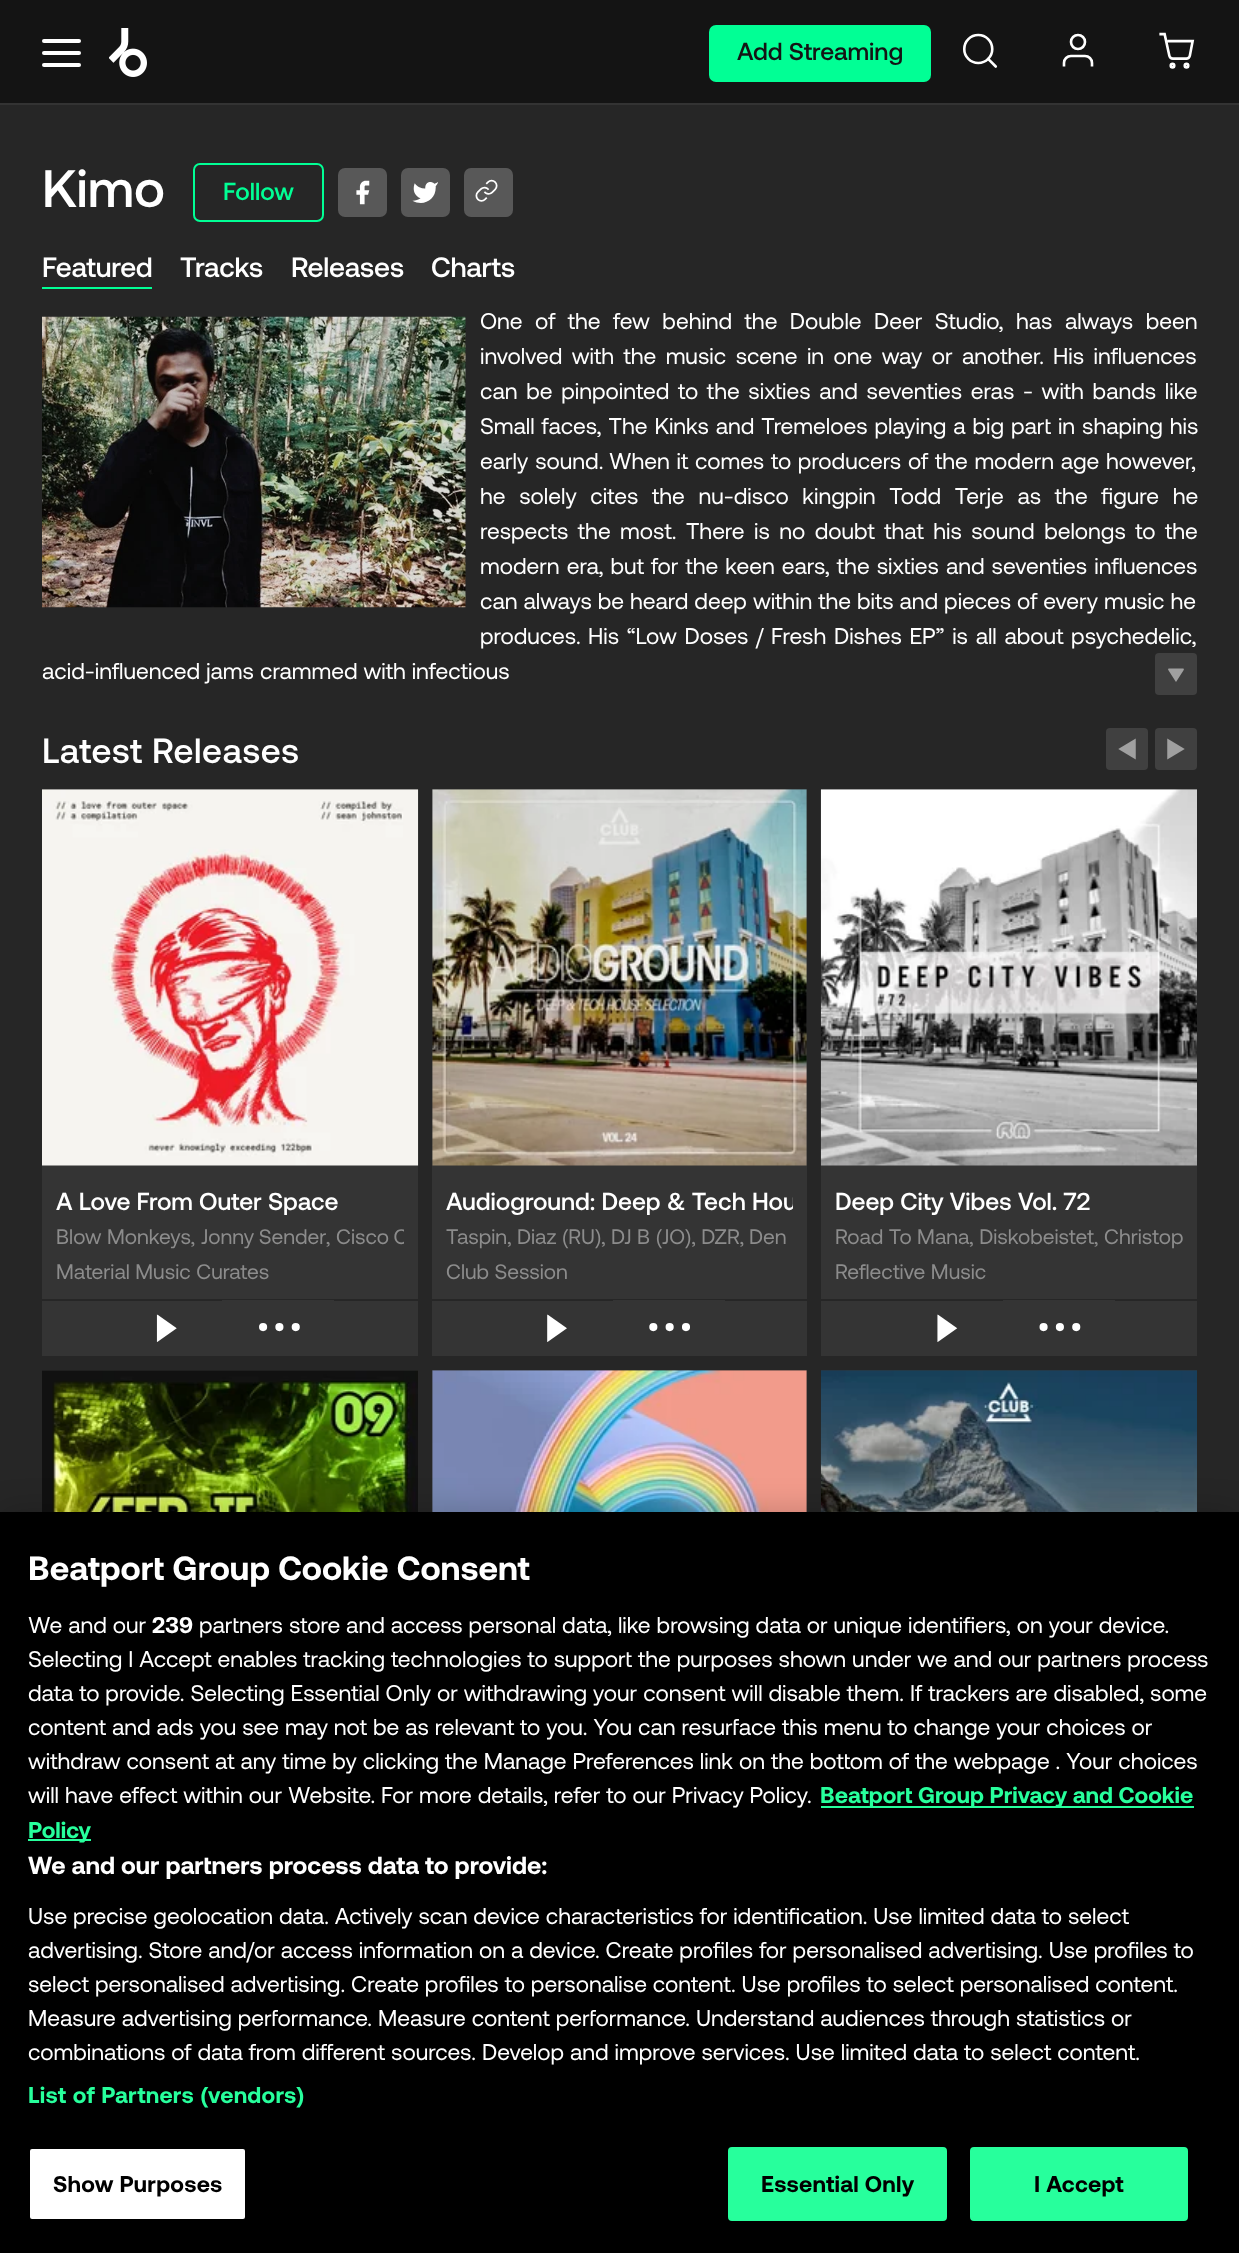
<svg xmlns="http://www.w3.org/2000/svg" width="1239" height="2253">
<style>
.a{font:500 24.5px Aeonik;fill:#141414}
.b{font:500 52.5px Aeonik;fill:#fff}
.c{font:500 24.5px Aeonik;fill:#01ff95}
.d{font:500 28px Aeonik;letter-spacing:-0.25px;fill:#fff}
.e{font:22.75px Aeonik;fill:#fff}
.f{font:500 35px Aeonik;letter-spacing:0.5px;fill:#fff}
.g{font:500 24.5px Aeonik;letter-spacing:-0.05px;fill:#fff}
.h{font:21px Aeonik;fill:#8c8c8c}
.i{font:bold 33.6px Aeonik;fill:#fff}
.j{font:bold 22.75px Aeonik;fill:#fff}
.k{font:bold 22.75px Aeonik;fill:#27ff9c}
.l{font:bold 24.6px Aeonik;fill:#fff}
.m{font:bold 22.75px Aeonik;letter-spacing:0.25px;fill:#27ff9c}
.n{font:bold 22.75px Aeonik;letter-spacing:0.25px;fill:#000}
</style>
<defs>
<clipPath id="clip1"><path d="M56 1222h348v28H56z"/></clipPath>
<clipPath id="clip2"><path d="M446 1180h347v35H446z"/></clipPath>
</defs>
<rect width="100%" height="100%" fill="#262626"/>
<path fill="#141414" d="M0 0h1239v103H0z"/>
<path fill="#333" d="M0 103h1239v2H0z"/>
<rect fill="#fff" x="42" y="51" width="39" height="4" rx="2"/>
<rect fill="#fff" x="42" y="39" width="39" height="4" rx="2"/>
<rect fill="#fff" x="42" y="63" width="39" height="4" rx="2"/>
<image href="1.png" x="109" y="28" width="38" height="49"/>
<rect fill="#01ff95" x="709" y="25" width="222" height="57" rx="7"/>
<image href="2.png" x="963" y="33" width="35" height="35"/>
<image href="3.png" x="1062" y="33" width="32" height="34"/>
<image href="4.png" x="1159" y="32" width="36" height="37"/>
<rect fill="none" stroke="#01ff95" stroke-width="2" x="194" y="164" width="129" height="57" rx="6"/>
<rect fill="#585858" x="338" y="168" width="49" height="49" rx="7"/>
<image href="5.png" x="356" y="180" width="14" height="25"/>
<rect fill="#585858" x="401" y="168" width="49" height="49" rx="7"/>
<image href="6.png" x="412" y="182" width="26" height="21"/>
<rect fill="#585858" x="464" y="168" width="49" height="49" rx="7"/>
<image href="7.png" x="475" y="179" width="23" height="23"/>
<path fill="#01ff95" d="M42 287h110v2H42z"/>
<rect fill="#404040" x="1155" y="653" width="42" height="42" rx="4"/>
<image href="8.png" x="1168" y="668" width="16" height="14"/>
<image href="9.png" x="42" y="316" width="424" height="292"/>
<rect fill="#404040" x="1106" y="728" width="42" height="42" rx="4"/>
<image href="10.png" x="1118" y="738" width="18" height="22"/>
<rect fill="#404040" x="1155" y="728" width="42" height="42" rx="4"/>
<image href="11.png" x="1167" y="738" width="18" height="22"/>
<path fill="#343434" d="M42 789h376v567H42z"/>
<image href="12.png" x="42" y="789" width="377" height="377"/>
<path fill="#262626" d="M42 1299h376v2H42z"/>
<image href="13.png" x="156" y="1314" width="21" height="28"/>
<path fill="#343434" d="M222 1300h112v1H222z"/>
<image href="14.png" x="259" y="1323" width="41" height="9"/>
<path fill="#343434" d="M432 789h375v567H432z"/>
<image href="15.png" x="432" y="789" width="375" height="377"/>
<path fill="#262626" d="M432 1299h375v2H432z"/>
<image href="16.png" x="547" y="1314" width="20" height="28"/>
<path fill="#343434" d="M613 1300h112v1H613z"/>
<image href="17.png" x="649" y="1323" width="41" height="9"/>
<path fill="#343434" d="M821 789h376v567H821z"/>
<image href="18.png" x="820" y="789" width="377" height="377"/>
<path fill="#262626" d="M821 1299h376v2H821z"/>
<image href="19.png" x="937" y="1314" width="21" height="28"/>
<path fill="#343434" d="M1003 1300h112v1H1003z"/>
<image href="20.png" x="1039" y="1323" width="42" height="9"/>
<path fill="#343434" d="M42 1370h376v1H42z"/>
<image href="21.png" x="42" y="1370" width="376" height="142"/>
<path fill="#343434" d="M432 1370h375v142H432z"/>
<image href="22.png" x="432" y="1370" width="375" height="142"/>
<path fill="#343434" d="M821 1370h376v1H821z"/>
<image href="23.png" x="820" y="1370" width="377" height="142"/>
<path fill="#00000033" filter="blur(16px)" d="M0 1512h1239v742H0z"/>
<path fill="#000" d="M0 1512h1239v741H0z"/>
<path fill="#27ff9c" d="M821 1806h373v2H821z"/>
<path fill="#27ff9c" d="M28 1839h63v2H28z"/>
<rect fill="#fff" stroke="#000" stroke-width="2" x="29" y="2148" width="217" height="72" rx="3"/>
<rect fill="#27ff9c" stroke="#27ff9c" stroke-width="2" x="729" y="2148" width="217" height="72" rx="3"/>
<rect fill="#27ff9c" stroke="#27ff9c" stroke-width="2" x="971" y="2148" width="216" height="72" rx="3"/>
<text class="a" x="737" y="60">Add Streaming</text>
<text class="b" x="42" y="207">Kimo</text>
<text class="c" x="223" y="200">Follow</text>
<text class="d" x="42" y="277">Featured</text>
<text class="d" x="180" y="277">Tracks</text>
<text class="d" x="291" y="277">Releases</text>
<text class="d" x="431" y="277">Charts</text>
<text class="e" x="480" y="329" word-spacing="6.5">One of the few behind the Double Deer Studio, has always been</text>
<text class="e" x="480" y="364" word-spacing="3.5">involved with the music scene in one way or another.</text>
<text class="e" x="1053" y="364" word-spacing="3.5">His influences</text>
<text class="e" x="480" y="399" word-spacing="2.75">can be pinpointed to the sixties and seventies eras - with bands like</text>
<text class="e" x="480" y="434" word-spacing="1">Small faces, The Kinks and Tremeloes playing a big part in shaping his</text>
<text class="e" x="480" y="469" word-spacing="1">early sound.</text>
<text class="e" x="609" y="469" word-spacing="0.75">When it comes to producers of the modern age however,</text>
<text class="e" x="480" y="504" word-spacing="7.75">he solely cites the nu-disco kingpin Todd Terje as the figure he</text>
<text class="e" x="480" y="539" word-spacing="3.5">respects the most. There is no doubt that his sound belongs to the</text>
<text class="e" x="480" y="574" word-spacing="1.1">modern era, but for the keen ears, the sixties and seventies influences</text>
<text class="e" x="480" y="609">can always be heard deep within the bits and pieces of every music he</text>
<text class="e" x="480" y="644">produces.</text>
<text class="e" x="588" y="644" word-spacing="1.75">His “Low Doses / Fresh Dishes EP” is all about psychedelic,</text>
<text class="e" x="42" y="679">acid-influenced jams crammed with infectious</text>
<text class="f" x="42" y="763">Latest Releases</text>
<text class="g" x="56" y="1210">A Love From Outer Space</text>
<text class="h" x="56" y="1244">Blow Monkeys,</text>
<text class="h" x="201" y="1244" word-spacing="-1">Jonny Sender</text>
<text class="h" x="326" y="1244">,</text>
<g clip-path="url(#clip1)">
<text class="h" x="336" y="1244" word-spacing="-1">Cisco C</text>
</g>
<text class="h" x="56" y="1279">Material Music Curates</text>
<g clip-path="url(#clip2)">
<text class="g" x="446" y="1210">Audioground: Deep &amp; Tech Hou</text>
</g>
<text class="h" x="446" y="1244">Taspin, Diaz (RU), DJ B (JO), DZR,</text>
<text class="h" x="749" y="1244">Den</text>
<text class="h" x="446" y="1279">Club Session</text>
<text class="g" x="835" y="1210">Deep City Vibes Vol. 72</text>
<text class="h" x="835" y="1244">Road To Mana, Diskobeistet,</text>
<text class="h" x="1104" y="1244" word-spacing="-1">Christop</text>
<text class="h" x="835" y="1279">Reflective Music</text>
<text class="i" x="28" y="1580">Beatport Group Cookie Consent</text>
<text class="e" x="28" y="1633">We and our</text>
<text class="j" x="152" y="1633">239</text>
<text class="e" x="199" y="1633">partners store and access personal data, like browsing data or unique identifiers, on your device.</text>
<text class="e" x="28" y="1667">Selecting I Accept enables tracking technologies to support the purposes shown under we and our partners process</text>
<text class="e" x="28" y="1701">data to provide. Selecting Essential Only or withdrawing your consent will disable them. If trackers are disabled, some</text>
<text class="e" x="28" y="1735">content and ads you see may not be as relevant to you. You can resurface this menu to change your choices or</text>
<text class="e" x="28" y="1769">withdraw consent at any time by clicking the Manage Preferences link on the bottom of the webpage . Your choices</text>
<text class="e" x="28" y="1803">will have effect within our Website. For more details, refer to our Privacy Policy.</text>
<text class="k" x="820" y="1803">Beatport Group Privacy and Cookie</text>
<text class="k" x="28" y="1838">Policy</text>
<text class="l" x="28" y="1874">We and our partners process data to provide:</text>
<text class="e" x="28" y="1924">Use precise geolocation data. Actively scan device characteristics for identification. Use limited data to select</text>
<text class="e" x="28" y="1958">advertising. Store and/or access information on a device. Create profiles for personalised advertising. Use profiles to</text>
<text class="e" x="28" y="1992">select personalised advertising. Create profiles to personalise content. Use profiles to select personalised content.</text>
<text class="e" x="28" y="2026">Measure advertising performance. Measure content performance. Understand audiences through statistics or</text>
<text class="e" x="28" y="2060">combinations of data from different sources. Develop and improve services. Use limited data to select content.</text>
<text class="m" x="28" y="2103" word-spacing="0.5">List of Partners (vendors)</text>
<text class="n" x="53" y="2192">Show Purposes</text>
<text class="n" x="761" y="2192">Essential Only</text>
<text class="n" x="1034" y="2192">I Accept</text>
</svg>
